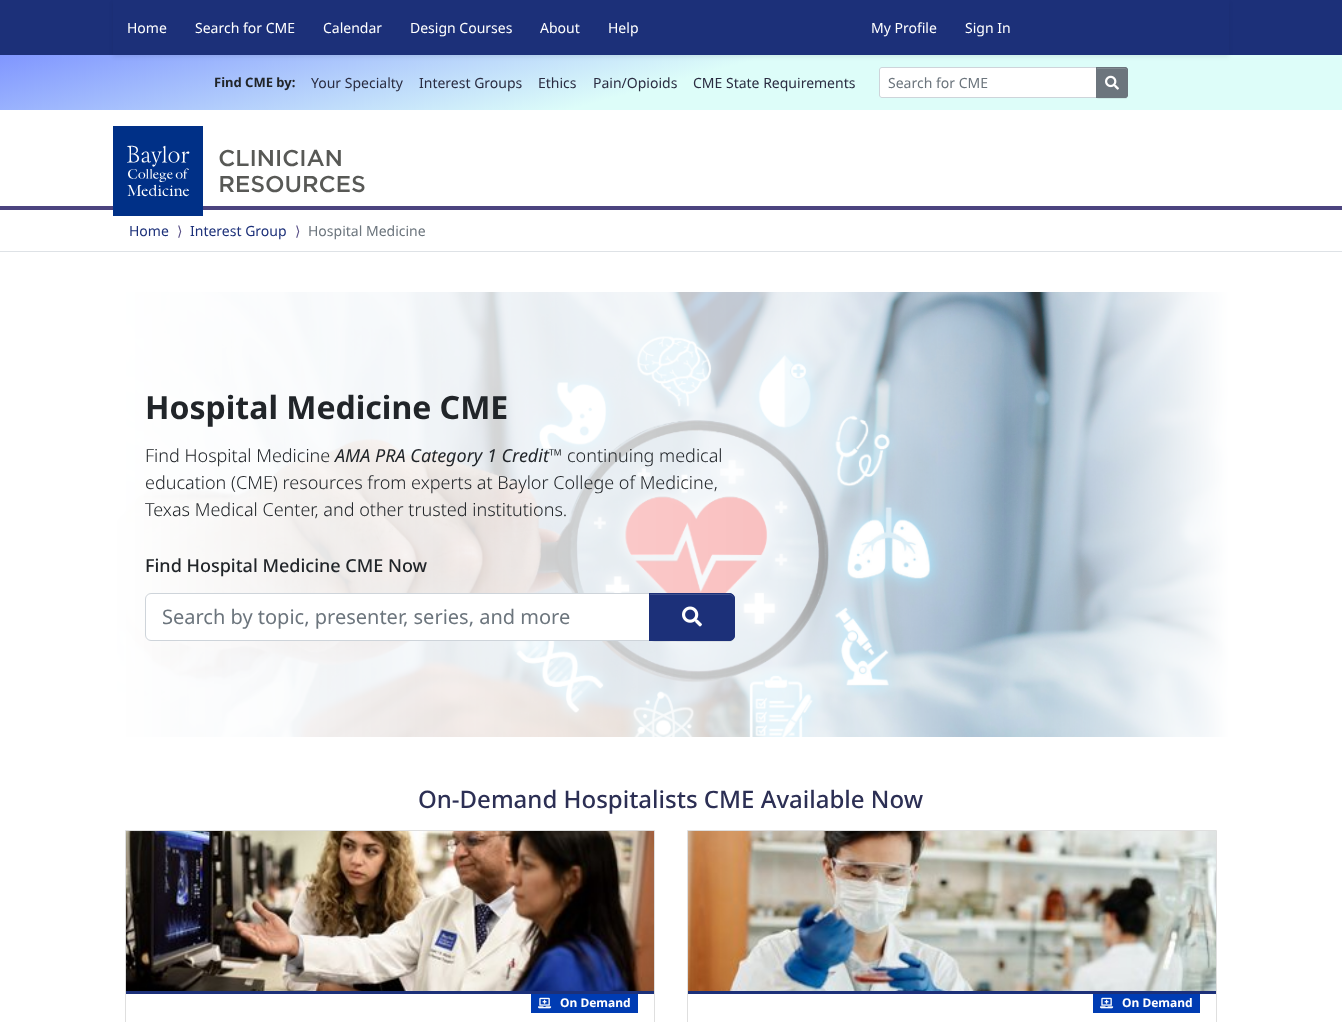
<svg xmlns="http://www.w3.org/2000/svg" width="1342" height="1022">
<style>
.a{font:14px Noto Sans;fill:#fff}
.b{font:bold 13px Noto Sans;fill:#212529}
.c{font:14px Noto Sans;fill:#2a2c41}
.d{font:14px Noto Sans;fill:#6c757d}
.e{font:14px Noto Sans;fill:#1c3079}
.f{font:14px DejaVu Sans;fill:#5a5188}
.g{font:bold 32px Noto Sans;fill:#212529}
.h{font:300 18px Noto Sans;fill:#212529}
.i{font:italic 18px Noto Sans;fill:#212529}
.j{font:italic 300 18px Noto Sans;fill:#212529}
.k{font:500 18px Noto Sans;fill:#212529}
.l{font:20px Noto Sans;fill:#6c757d}
.m{font:500 24px Noto Sans;fill:#2c2f54}
.n{font:bold 12px Noto Sans;fill:#fff}
</style>
<defs>
<linearGradient id="g1" gradientUnits="userSpaceOnUse" x1="619" y1="-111" x2="723" y2="276"><stop offset="0" stop-color="#8096ff"/><stop offset="0.5" stop-color="#ddfdf9"/></linearGradient>
<clipPath id="clip1"><path d="M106 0h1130v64h-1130zm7 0h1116v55h-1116z" clip-rule="evenodd"/></clipPath>
</defs>
<rect width="100%" height="100%" fill="#fff"/>
<path fill="#1c3079" d="M0 0h1342v55H0z"/>
<path fill="url(#g1)" d="M0 55h1342v55H0z"/>
<g clip-path="url(#clip1)">
<path fill="#00000012" filter="blur(2px)" d="M113 2h1116v55H113z"/>
</g>
<path fill="#fff" stroke="#ced4da" d="M882 67.5h214.5v30h-214.5c-1.5 0-2.5-1-2.5-2.5v-25c0-1.5 1-2.5 2.5-2.5z"/>
<rect fill="#00000012" filter="blur(0.5px)" x="1096" y="68" width="32" height="31" rx="3"/>
<path fill="#6c757d" d="M1096 67h29c1.5 0 3 1.5 3 3v25c0 1.5-1.5 3-3 3h-29z"/>
<path fill="#828a91" d="M1097 69h28c1 0 2 1 2 2v-1c0-1-1-2-2-2h-28z"/>
<path fill="none" stroke="#6c757d" d="M1096.5 67.5h28.5c1.5 0 2.5 1 2.5 2.5v25c0 1.5-1 2.5-2.5 2.5h-28.5z"/>
<image href="1.png" x="1105" y="75" width="14" height="15"/>
<path fill="#4c447f" d="M0 206h1342v4H0z"/>
<image href="2.png" x="113" y="126" width="252" height="90"/>
<path fill="#dee2e6" d="M0 251h1342v1H0z"/>
<image href="3.png" x="113" y="292" width="1116" height="445"/>
<path fill="#fff" stroke="#ced4da" d="M151 593.5h498.5v47h-498.5c-3 0-5.5-2.5-5.5-5.5v-36c0-3 2.5-5.5 5.5-5.5z"/>
<rect fill="#00000012" filter="blur(0.5px)" x="649" y="594" width="86" height="48" rx="6"/>
<path fill="#1c3079" d="M649 593h80c3.5 0 6 2.5 6 6v36c0 3.5-2.5 6-6 6h-80z"/>
<path fill="#3e4f8d" d="M650 595h79c3 0 5 2 5 5v-1c0-3-2-5-5-5h-79z"/>
<path fill="none" stroke="#1c3079" d="M649.5 593.5h79.5c3 0 5.5 2.5 5.5 5.5v36c0 3-2.5 5.5-5.5 5.5h-79.5z"/>
<image href="4.png" x="682" y="606" width="20" height="21"/>
<path fill="none" stroke="#dfdfdf" d="M125.5 830.5h529v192H125.5z"/>
<image href="5.png" x="126" y="831" width="528" height="160"/>
<path fill="#1c3079" d="M126 991h528v3H126z"/>
<path fill="#003cb3" d="M531 994h107v19H531z"/>
<image href="6.png" x="538" y="997" width="14" height="12"/>
<path fill="none" stroke="#dfdfdf" d="M687.5 830.5h529v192H687.5z"/>
<image href="7.png" x="688" y="831" width="528" height="160"/>
<path fill="#1c3079" d="M688 991h528v3H688z"/>
<path fill="#003cb3" d="M1093 994h107v19H1093z"/>
<image href="6.png" x="1100" y="997" width="14" height="12"/>
<text class="a" x="127" y="33">Home</text>
<text class="a" x="195" y="33">Search for CME</text>
<text class="a" x="323" y="33">Calendar</text>
<text class="a" x="410" y="33">Design Courses</text>
<text class="a" x="540" y="33">About</text>
<text class="a" x="608" y="33">Help</text>
<text class="a" x="871" y="33">My Profile</text>
<text class="a" x="965" y="33">Sign In</text>
<text class="b" x="214" y="87">Find CME by:</text>
<text class="c" x="311" y="88">Your Specialty</text>
<text class="c" x="419" y="88">Interest Groups</text>
<text class="c" x="538" y="88">Ethics</text>
<text class="c" x="593" y="88">Pain/Opioids</text>
<text class="c" x="693" y="88">CME State Requirements</text>
<text class="d" x="888" y="88">Search for CME</text>
<text class="e" x="129" y="236">Home</text>
<text class="f" x="177" y="236">⟩</text>
<text class="e" x="190" y="236">Interest Group</text>
<text class="f" x="295" y="236">⟩</text>
<text class="d" x="308" y="236">Hospital Medicine</text>
<text class="g" x="145" y="419">Hospital Medicine CME</text>
<text class="h" x="145" y="462">Find Hospital Medicine</text>
<text class="i" x="335" y="462">AMA PRA Category 1 Credit</text>
<text class="j" x="549" y="462">™</text>
<text class="h" x="567" y="462">continuing medical</text>
<text class="h" x="145" y="489">education (CME) resources from experts at Baylor College of Medicine,</text>
<text class="h" x="145" y="516">Texas Medical Center, and other trusted institutions.</text>
<text class="k" x="145" y="572">Find Hospital Medicine CME Now</text>
<text class="l" x="162" y="624">Search by topic, presenter, series, and more</text>
<text class="m" x="418" y="808">On-Demand Hospitalists CME Available Now</text>
<text class="n" x="560" y="1007">On Demand</text>
<text class="n" x="1122" y="1007">On Demand</text>
</svg>
